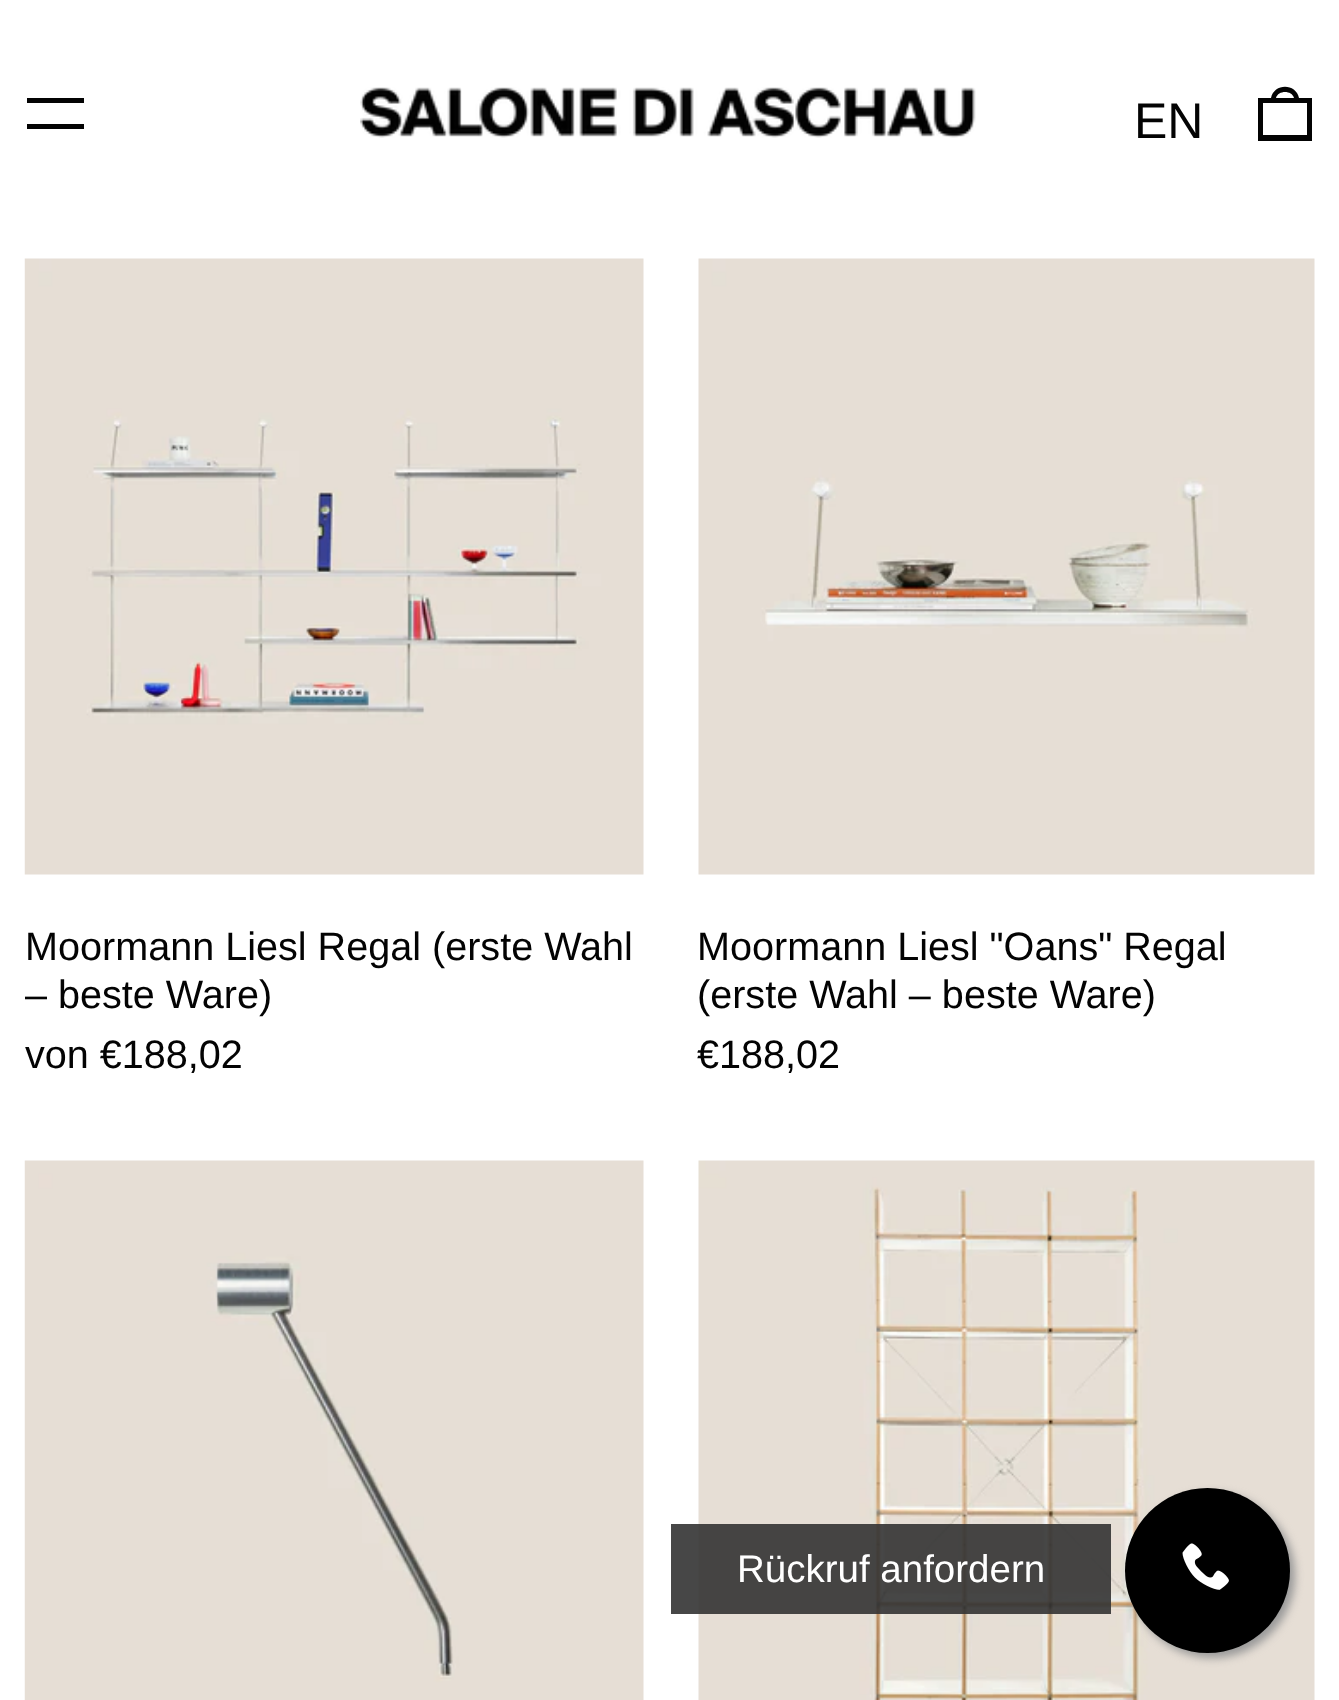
<svg xmlns="http://www.w3.org/2000/svg" width="1339" height="1700">
<style>
.a{font:50px Liberation Sans;fill:#030303}
.b{font:39.6px Liberation Sans;fill:#030303}
.c{font:38.5px Liberation Sans;fill:#fff}
</style>
<rect width="100%" height="100%" fill="#fff"/>
<path fill="#030303" fill-rule="evenodd" d="M84 124v5h-57v-5zm0-26v5h-57v-5z"/>
<image href="1.png" x="360" y="87" width="616" height="51"/>
<path fill="#030303" fill-rule="evenodd" d="M1263 135h44v-32h-44zm22-43c4 0 8 2 9 6h-18c1-4 5-6 9-6zm14 6c-3-15-25-15-28 0h-13v43h54v-43z"/>
<image href="2.png" x="24" y="258" width="620" height="617"/>
<image href="3.png" x="698" y="258" width="617" height="617"/>
<image href="4.png" x="24" y="1160" width="620" height="540"/>
<image href="5.png" x="698" y="1160" width="617" height="540"/>
<rect fill="#999" filter="blur(4px)" x="1130" y="1493" width="165" height="165" rx="82.5"/>
<circle fill="#000" cx="1207.5" cy="1570.5" r="82.5"/>
<path fill="#333333e6" d="M671 1524h440v90H671z"/>
<image href="6.png" x="1182" y="1543" width="47" height="47"/>
<text class="a" x="1134" y="138">EN</text>
<text class="b" x="25" y="960">Moormann Liesl Regal (erste Wahl</text>
<text class="b" x="25" y="1008">– beste Ware)</text>
<text class="b" x="25" y="1068">von €188,02</text>
<text class="b" x="697" y="960">Moormann Liesl "Oans" Regal</text>
<text class="b" x="697" y="1008">(erste Wahl – beste Ware)</text>
<text class="b" x="697" y="1068">€188,02</text>
<text class="c" x="737" y="1582">Rückruf anfordern</text>
</svg>
